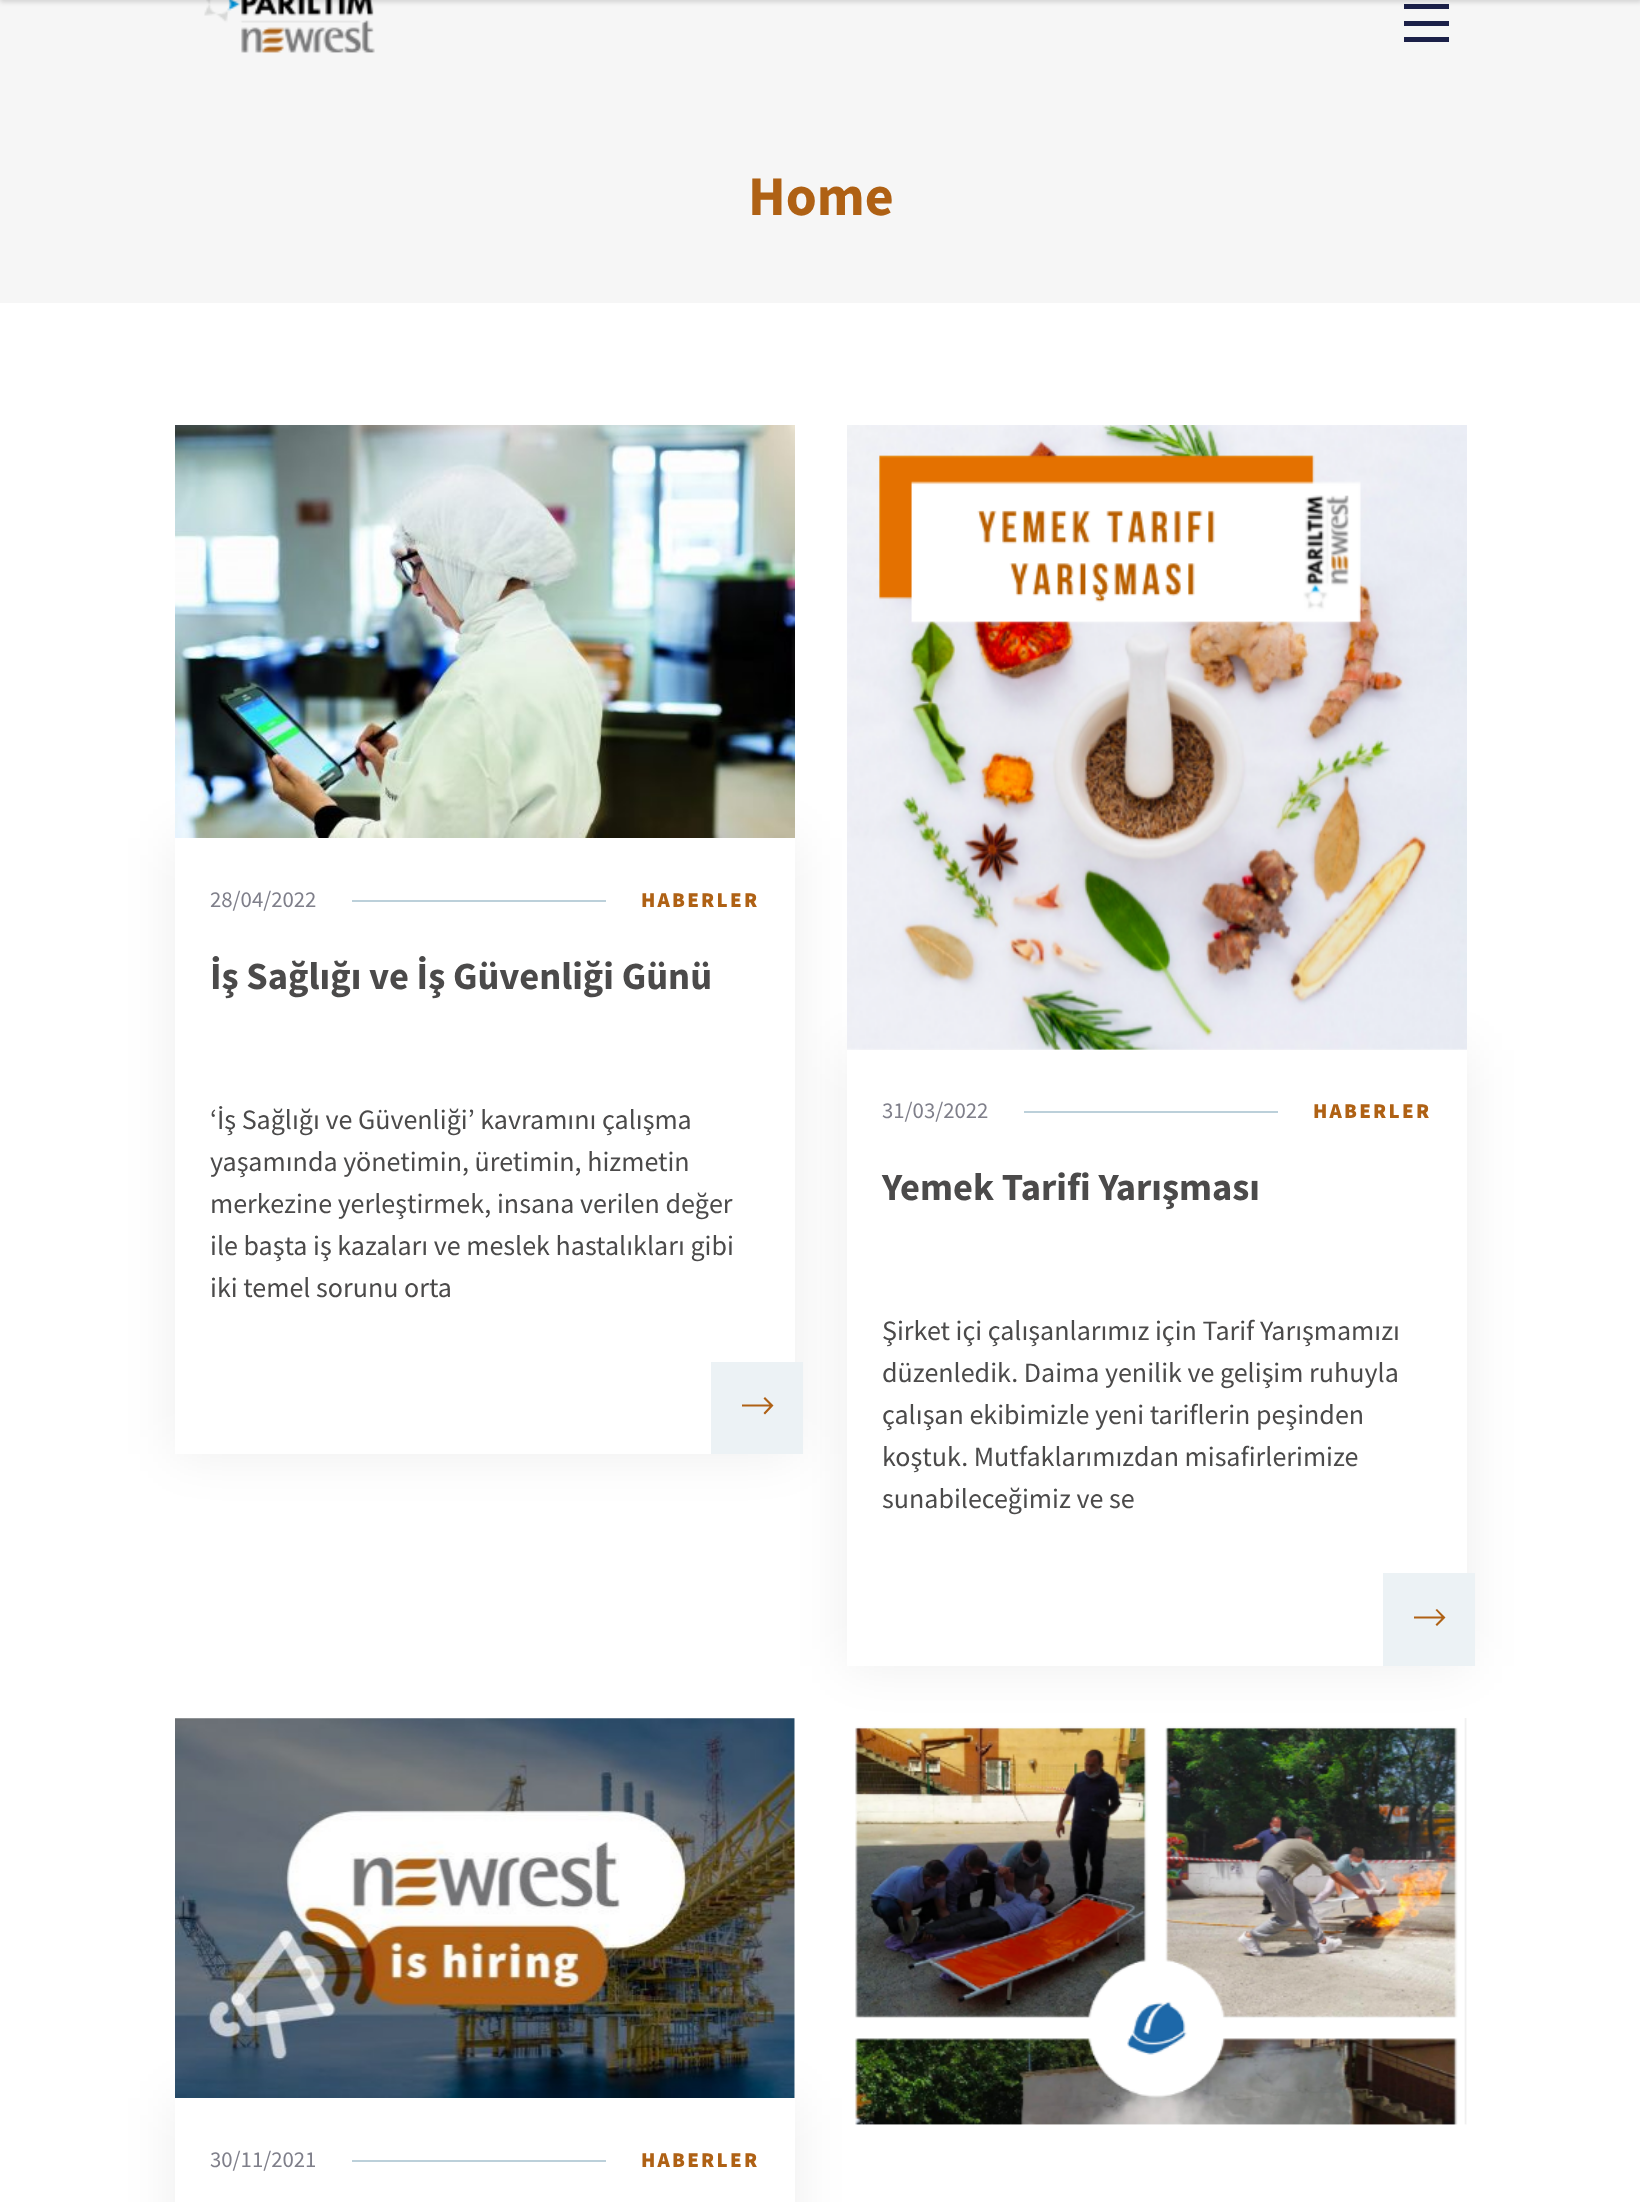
<svg xmlns="http://www.w3.org/2000/svg" width="1640" height="2202">
<style>
.a{font:bold 56px Source Sans Pro;fill:#af6114}
.b{font:22.75px Source Sans Pro;fill:#7f7f8a}
.c{font:900 21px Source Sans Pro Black;letter-spacing:2.25px;fill:#af6114}
.d{font:bold 38.5px Source Sans Pro;fill:#4b4a4a}
.e{font:28px Source Sans Pro;fill:#4b4a4a}
</style>
<rect width="100%" height="100%" fill="#f6f6f6"/>
<image href="1.png" x="204" y="0" width="171" height="53"/>
<path fill="#1b2048" d="M1404 4h45v5H1404z"/>
<path fill="#00000026" filter="blur(2.5px)" d="M0 -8h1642v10H0z"/>
<path fill="#1b2048" d="M1404 21h45v5H1404z"/>
<path fill="#1b2048" d="M1404 37h45v5H1404z"/>
<path fill="#fff" d="M0 303h1640v1899H0z"/>
<path fill="#00000012" filter="blur(26px)" d="M175 838h620v616H175z"/>
<image href="2.png" x="175" y="425" width="620" height="413"/>
<path fill="#fff" d="M175 838h620v616H175z"/>
<path fill="#bcd0da" d="M352 900h254v2H352z"/>
<path fill="#ecf2f5" d="M711 1362h92v92H711z"/>
<path fill="#af6114" d="M763.5 1398.5l6 6h-27.5v2h27.5l-6 6.5l1.5 1.5l8.5-9l-8.5-8.5z"/>
<path fill="#00000012" filter="blur(26px)" d="M847 1050h620v616H847z"/>
<image href="3.png" x="847" y="425" width="620" height="625"/>
<path fill="#fff" d="M847 1050h620v616H847z"/>
<path fill="#bcd0da" d="M1024 1111h254v2H1024z"/>
<path fill="#ecf2f5" d="M1383 1573h92v93H1383z"/>
<path fill="#af6114" d="M1435.5 1610l6 6.5h-27.5v2h27.5l-6 6l1.5 1.5l8.5-8.5l-8.5-8.5z"/>
<path fill="#00000012" filter="blur(26px)" d="M175 2098h620v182H175z"/>
<image href="4.png" x="855" y="1718" width="612" height="407"/>
<image href="5.png" x="175" y="1718" width="620" height="380"/>
<path fill="#fff" d="M175 2098h620v104H175z"/>
<path fill="#bcd0da" d="M352 2160h254v2H352z"/>
<text class="a" x="748" y="215">Home</text>
<text class="b" x="210" y="907">28/04/2022</text>
<text class="c" x="641" y="907">HABERLER</text>
<text class="d" x="210" y="989">İş Sağlığı ve İş Güvenliği Günü</text>
<text class="e" x="210" y="1129">‘İş Sağlığı ve Güvenliği’ kavramını çalışma</text>
<text class="e" x="210" y="1171">yaşamında yönetimin, üretimin, hizmetin</text>
<text class="e" x="210" y="1213">merkezine yerleştirmek, insana verilen değer</text>
<text class="e" x="210" y="1255">ile başta iş kazaları ve meslek hastalıkları gibi</text>
<text class="e" x="210" y="1297">iki temel sorunu orta</text>
<text class="b" x="882" y="1118">31/03/2022</text>
<text class="c" x="1313" y="1118">HABERLER</text>
<text class="d" x="882" y="1200">Yemek Tarifi Yarışması</text>
<text class="e" x="882" y="1340">Şirket içi çalışanlarımız için Tarif Yarışmamızı</text>
<text class="e" x="882" y="1382">düzenledik. Daima yenilik ve gelişim ruhuyla</text>
<text class="e" x="882" y="1424">çalışan ekibimizle yeni tariflerin peşinden</text>
<text class="e" x="882" y="1466">koştuk. Mutfaklarımızdan misafirlerimize</text>
<text class="e" x="882" y="1508">sunabileceğimiz ve se</text>
<text class="b" x="210" y="2167">30/11/2021</text>
<text class="c" x="641" y="2167">HABERLER</text>
</svg>
